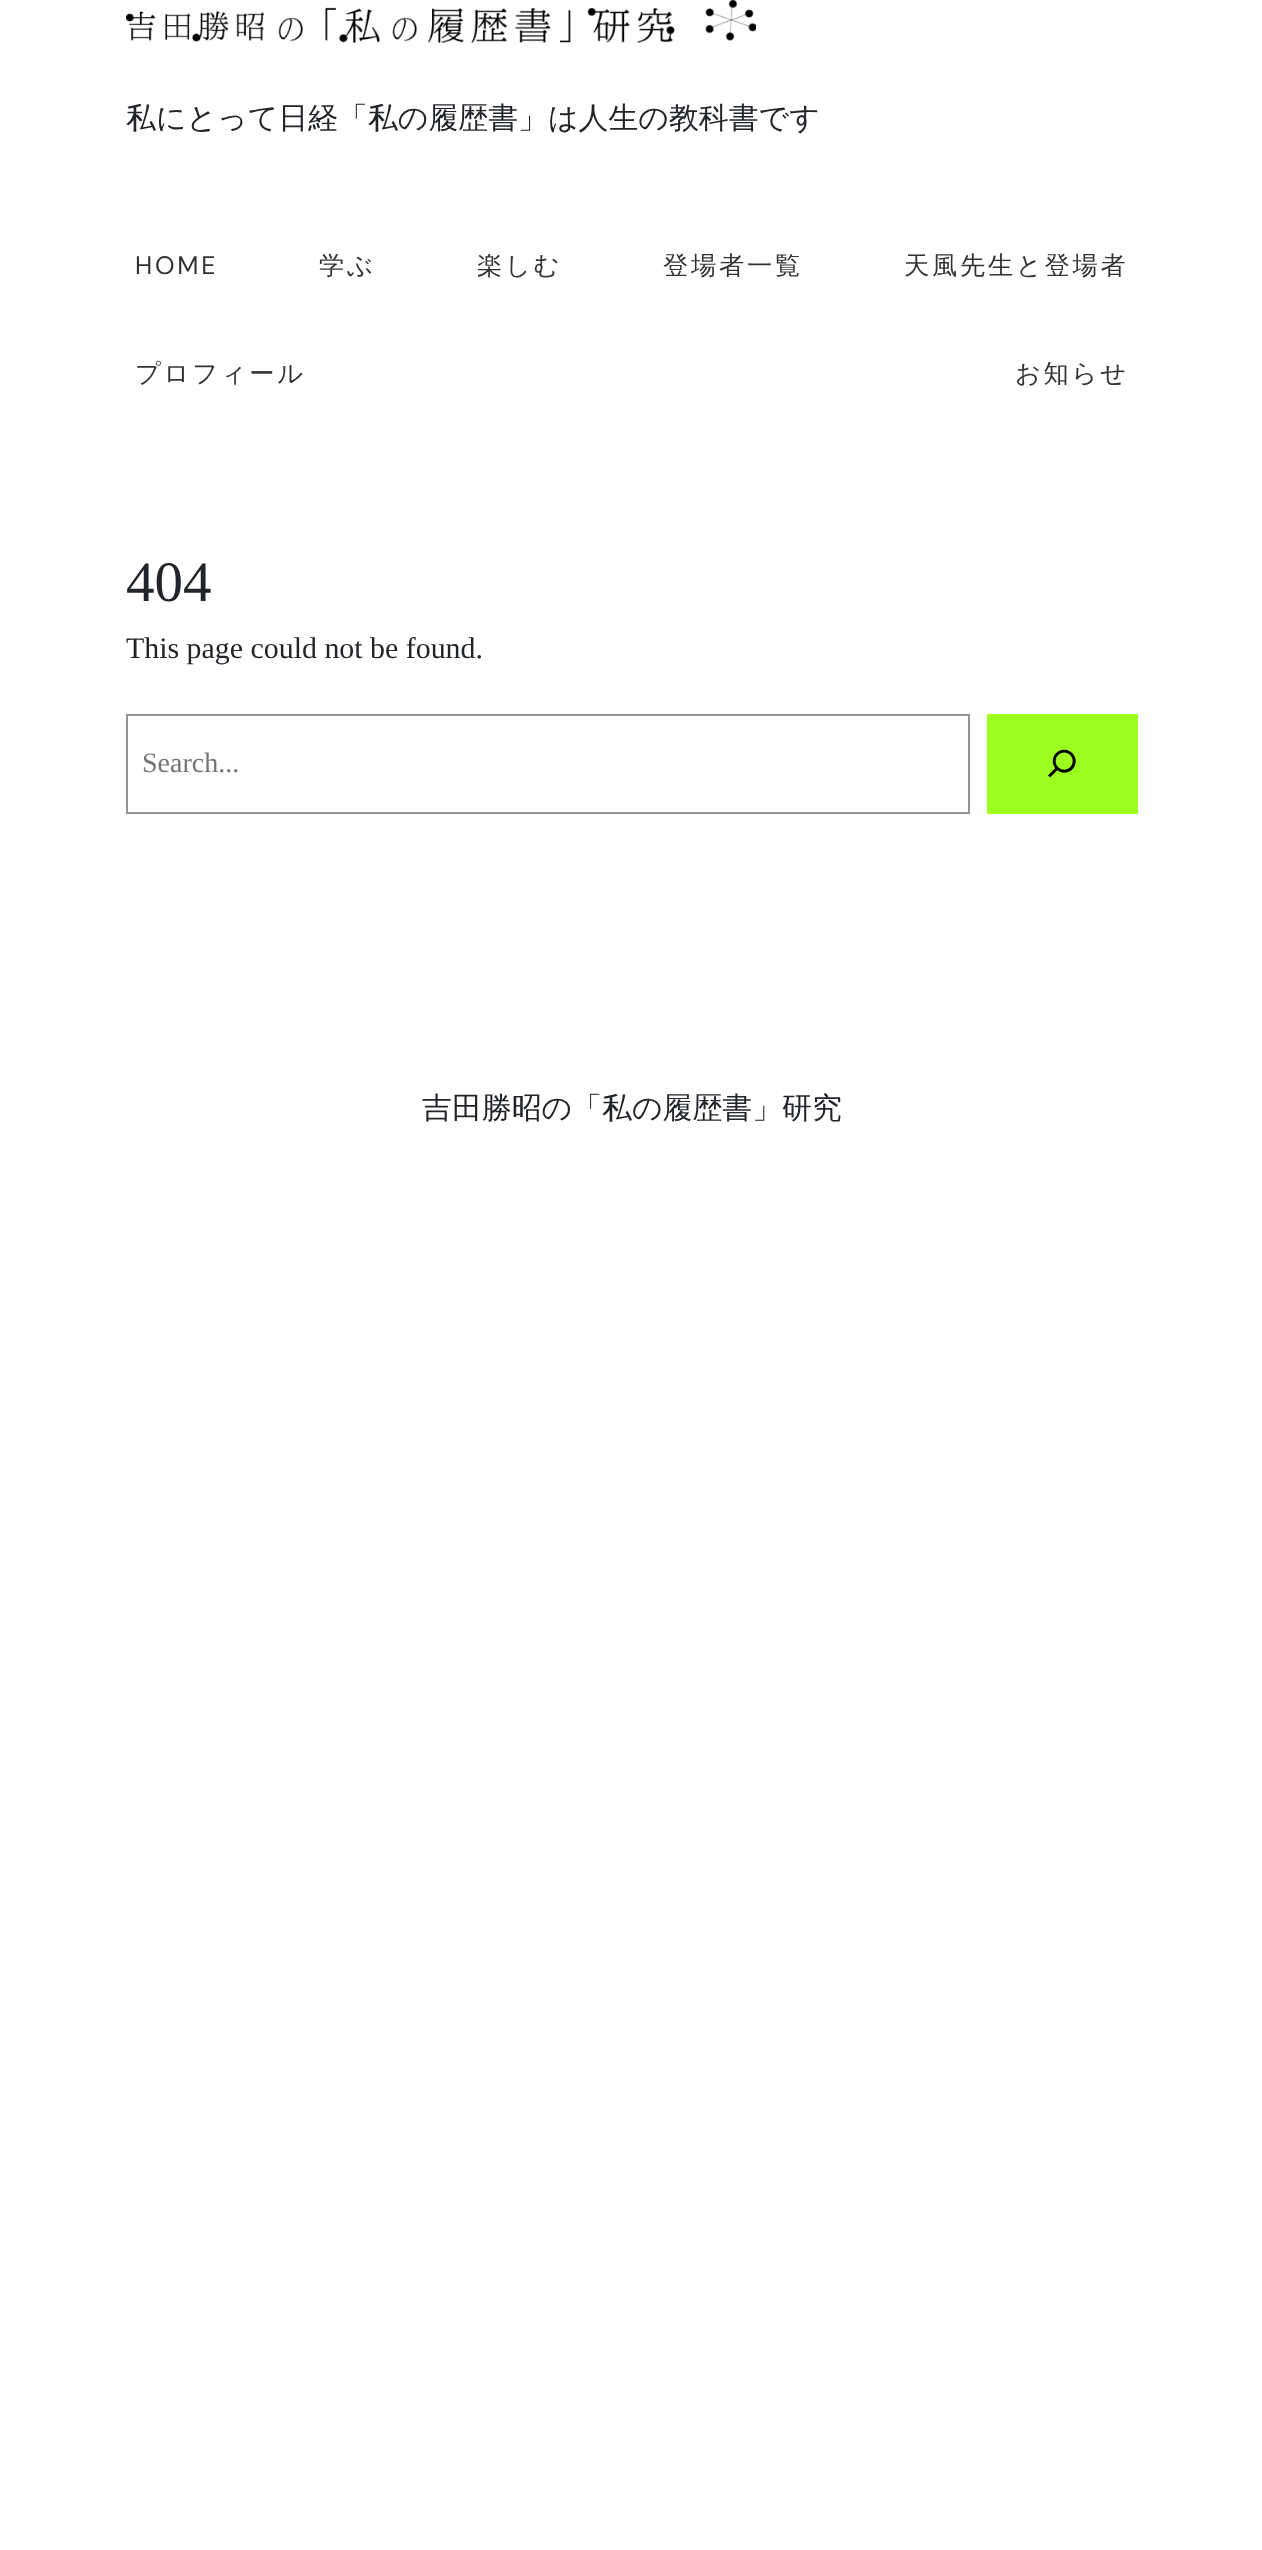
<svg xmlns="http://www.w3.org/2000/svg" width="1262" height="2550">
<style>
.a{font:500 29.9px WenQuanYi Zen Hei;fill:#212529}
.b{font:25.25px DM Sans;letter-spacing:2.75px;fill:#333}
.c{font:500 25.25px WenQuanYi Zen Hei;letter-spacing:2.75px;fill:#333}
.d{font:57px Liberation Serif;fill:#212529}
.e{font:29.9px Liberation Serif;fill:#212529}
.f{font:28px Liberation Serif;fill:#757575}
</style>
<rect width="100%" height="100%" fill="#fff"/>
<image href="1.png" x="126" y="0" width="630" height="43"/>
<path fill="none" stroke="#949494" stroke-width="2" d="M127 715h842v98H127z"/>
<path fill="#9dff20" d="M987 714h151v100H987z"/>
<image href="2.png" x="1048" y="749" width="28" height="29"/>
<text class="a" x="126" y="128">私にとって日経「私の履歴書」は人生の教科書です</text>
<text class="b" x="135" y="274">HOME</text>
<text class="c" x="319" y="274">学ぶ</text>
<text class="c" x="477" y="274">楽しむ</text>
<text class="c" x="663" y="274">登場者一覧</text>
<text class="c" x="904" y="274">天風先生と登場者</text>
<text class="c" x="135" y="382">プロフィール</text>
<text class="c" x="1015" y="382">お知らせ</text>
<text class="d" x="126" y="601">404</text>
<text class="e" x="126" y="658">This page could not be found.</text>
<text class="f" x="142" y="772">Search...</text>
<text class="a" x="422" y="1118">吉田勝昭の「私の履歴書」研究</text>
</svg>
